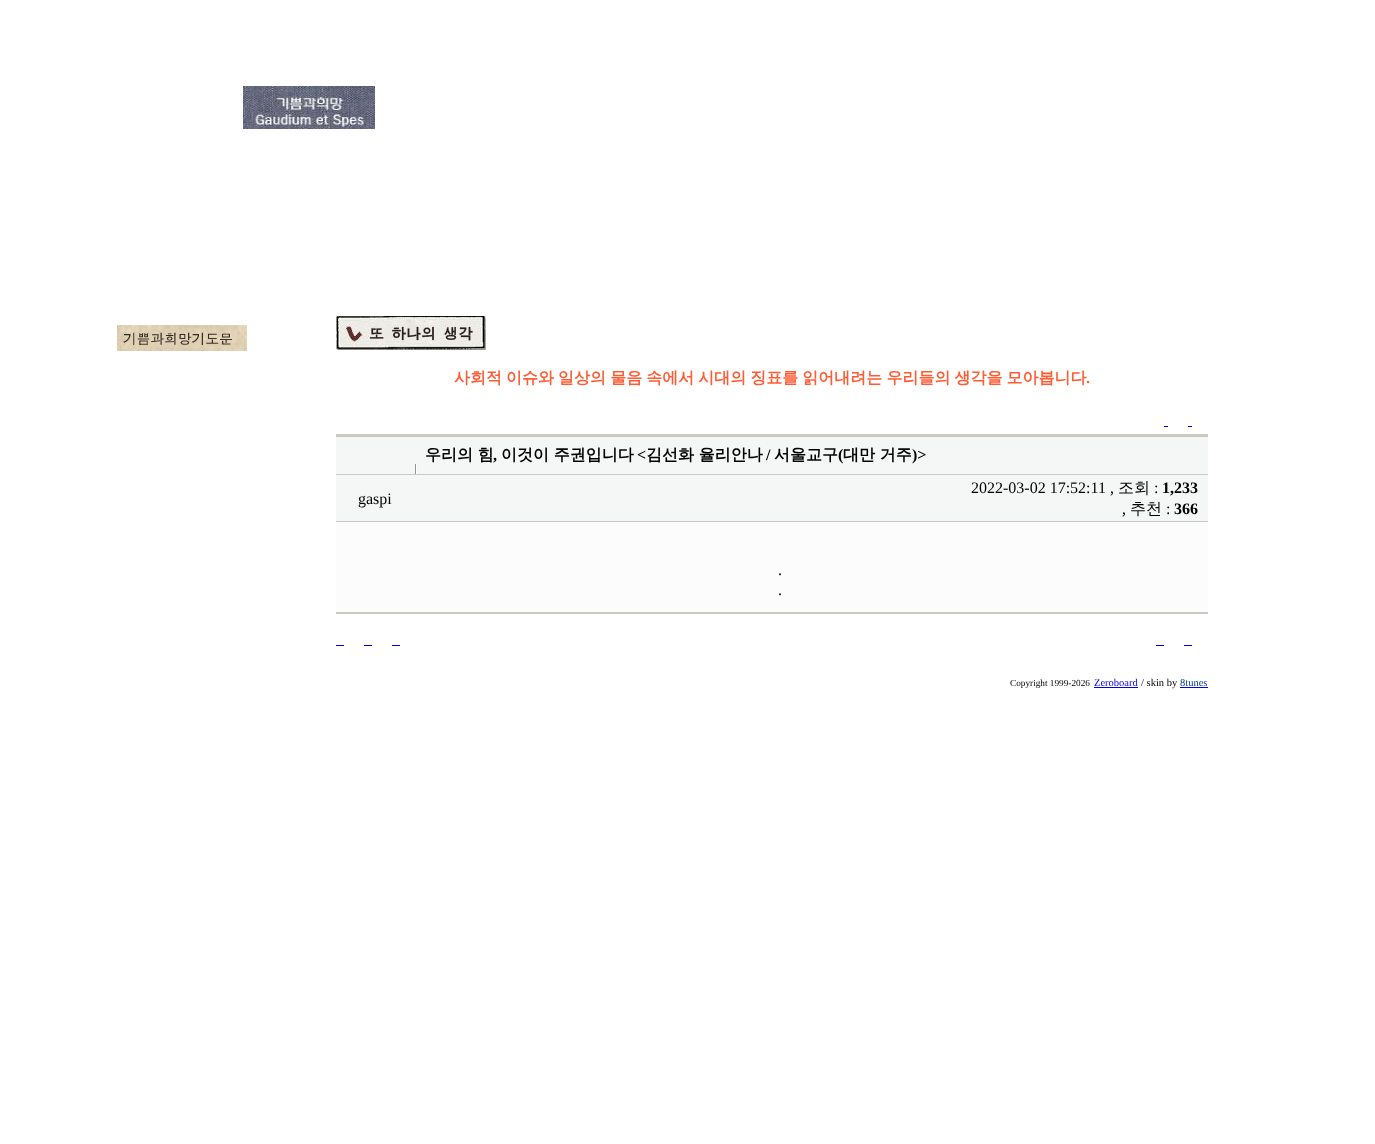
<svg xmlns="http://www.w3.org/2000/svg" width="1375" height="1144">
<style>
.a{font:bold 16px WenQuanYi Zen Hei;fill:#ff5c33}
.b{font:bold 16px Liberation Serif;fill:#ff5c33}
.c{font:bold 16px WenQuanYi Zen Hei;fill:#000}
.d{font:bold 16px Liberation Serif;fill:#000}
.e{font:16px Liberation Serif;fill:#000}
.f{font:500 16px WenQuanYi Zen Hei;fill:#000}
.g{font:9.25px Liberation Serif;fill:#000}
.h{font:10.5px Liberation Serif;fill:#00e}
.i{font:10.5px Liberation Serif;fill:#000}
.j{font:10.5px Liberation Serif;fill:#004282}
</style>
<rect width="100%" height="100%" fill="#fff"/>
<image href="1.png" x="243" y="86" width="132" height="43"/>
<image href="2.png" x="117" y="325" width="130" height="26"/>
<image href="3.png" x="336" y="316" width="150" height="34"/>
<path fill="#00e" d="M1164 426h4v1H1164z"/>
<path fill="#00e" d="M1188 426h4v1H1188z"/>
<path fill="#cacac1" d="M336 434h872v3H336z"/>
<path fill="#f5f7f6" d="M336 437h79v37H336z"/>
<path fill="#f5f7f6" d="M415 437h2v27H415z"/>
<image href="4.png" x="415" y="464" width="2" height="10"/>
<path fill="#f5f7f6" d="M417 437h791v37H417z"/>
<path fill="#cacac1" d="M336 474h872v1H336z"/>
<path fill="#f5f7f6" d="M336 475h872v46H336z"/>
<path fill="#cacac1" d="M336 521h872v1H336z"/>
<path fill="#fcfcfc" d="M336 522h872v90H336z"/>
<path fill="#cacac1" d="M336 612h872v2H336z"/>
<path fill="#00e" d="M336 645h8v1H336z"/>
<path fill="#00e" d="M364 645h8v1H364z"/>
<path fill="#00e" d="M392 645h8v1H392z"/>
<path fill="#00e" d="M1156 645h8v1H1156z"/>
<path fill="#00e" d="M1184 645h8v1H1184z"/>
<path fill="#00e" d="M1094 687h44v1H1094z"/>
<path fill="#00e" d="M1180 687h28v1H1180z"/>
<text class="a" x="454" y="383" word-spacing="-0.75">사회적 이슈와 일상의 물음 속에서 시대의 징표를 읽어내려는 우리들의 생각을 모아봅니다</text>
<text class="b" x="1086" y="383">.</text>
<text class="c" x="425" y="460">우리의 힘</text>
<text class="c" x="501" y="460">이것이 주권입니다</text>
<text class="d" x="637" y="460">&lt;</text>
<text class="c" x="646" y="460">김선화 율리안나</text>
<text class="d" x="766" y="460">/</text>
<text class="c" x="774" y="460">서울교구</text>
<text class="d" x="838" y="460">(</text>
<text class="c" x="843" y="460">대만 거주</text>
<text class="d" x="912" y="460">)&gt;</text>
<text class="d" x="493" y="460">,</text>
<text class="e" x="358" y="504">gaspi</text>
<text class="e" x="971" y="493">2022-03-02 17:52:11 ,</text>
<text class="f" x="1118" y="493">조회</text>
<text class="e" x="1154" y="493">:</text>
<text class="d" x="1162" y="493">1,233</text>
<text class="e" x="1122" y="514">,</text>
<text class="f" x="1130" y="514">추천</text>
<text class="e" x="1166" y="514">:</text>
<text class="d" x="1174" y="514">366</text>
<text class="e" x="778" y="575">.</text>
<text class="e" x="778" y="595">.</text>
<text class="g" x="1010" y="686">Copyright 1999-2026</text>
<text class="h" x="1094" y="686">Zeroboard</text>
<text class="i" x="1141" y="686">/ skin by</text>
<text class="j" x="1180" y="686">8tunes</text>
</svg>
